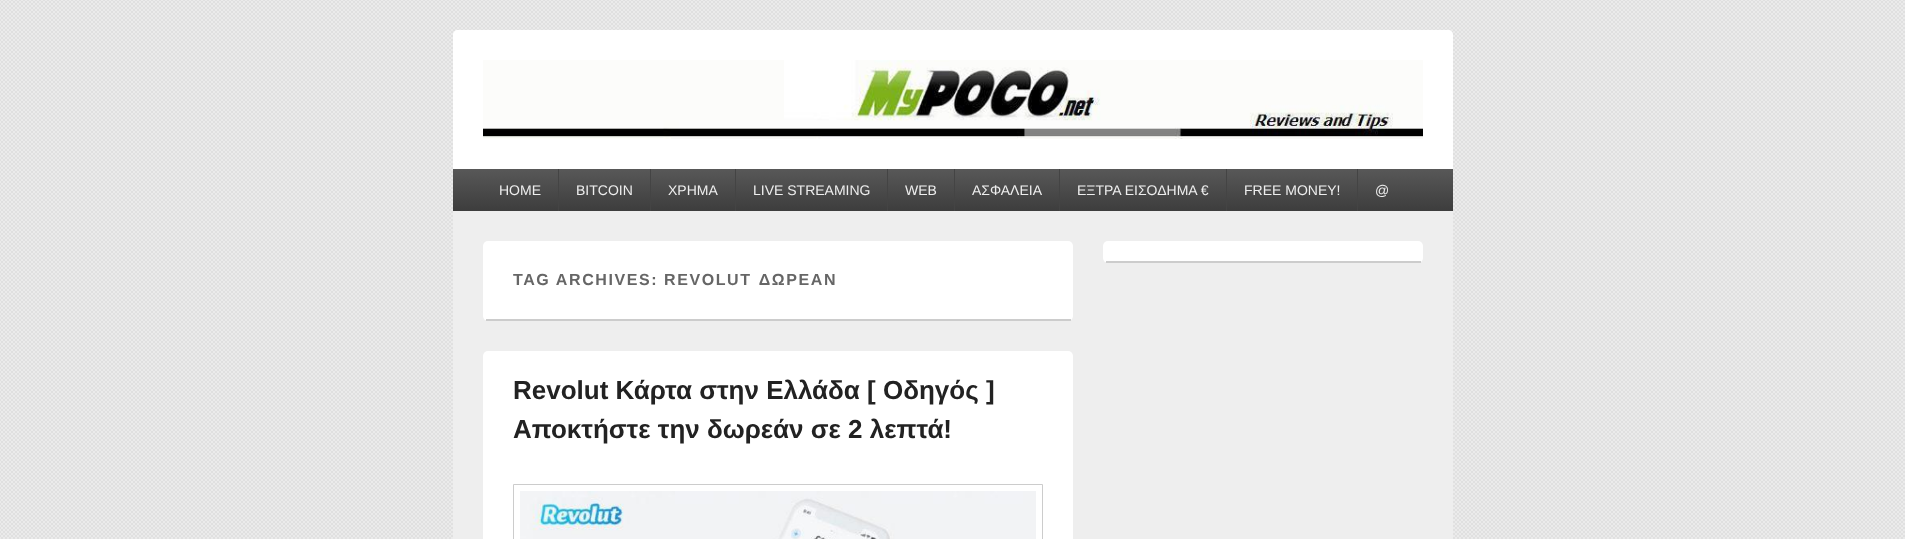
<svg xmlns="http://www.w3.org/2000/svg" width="1905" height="539">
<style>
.a{font:14px Liberation Sans;fill:#eee}
.b{font:bold 16px Liberation Sans;letter-spacing:1.6px;fill:#666}
.c{font:bold 26px Liberation Sans;fill:#222}
</style>
<defs>
<linearGradient id="g1" gradientUnits="userSpaceOnUse" x1="953" y1="169" x2="953" y2="211"><stop offset="0" stop-color="#585858"/><stop offset="1" stop-color="#3d3d3d"/></linearGradient>
</defs>
<rect width="100%" height="100%" fill="#fff"/>
<image href="1.png" x="0" y="0" width="1905" height="539"/>
<rect fill="#eee" x="453" y="30" width="1000" height="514" rx="5"/>
<path fill="#fff" d="M458 30h990c3 0 5 2 5 5v176h-1000v-176c0-3 2-5 5-5z"/>
<image href="2.png" x="483" y="60" width="940" height="79"/>
<path fill="url(#g1)" d="M453 169h1000v42H453z"/>
<path fill="#444" d="M558 169h1v42H558z"/>
<path fill="#444" d="M650 169h1v42H650z"/>
<path fill="#444" d="M735 169h1v42H735z"/>
<path fill="#444" d="M887 169h1v42H887z"/>
<path fill="#444" d="M954 169h1v42H954z"/>
<path fill="#444" d="M1059 169h1v42H1059z"/>
<path fill="#444" d="M1226 169h1v42H1226z"/>
<path fill="#444" d="M1357 169h1v42H1357z"/>
<rect fill="#fff" x="1103" y="241" width="320" height="22" rx="5"/>
<path fill="#ccc" d="M1106 261h315v2H1106z"/>
<rect fill="#fff" x="483" y="241" width="590" height="80" rx="5"/>
<path fill="#ccc" d="M486 319h585v2H486z"/>
<rect fill="#fff" x="483" y="351" width="590" height="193" rx="5"/>
<path fill="none" stroke="#ccc" d="M513.5 484.5h529v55H513.5z"/>
<image href="3.png" x="520" y="491" width="516" height="48"/>
<text class="a" x="499" y="195">HOME</text>
<text class="a" x="576" y="195">BITCOIN</text>
<text class="a" x="668" y="195">ΧΡΗΜΑ</text>
<text class="a" x="753" y="195">LIVE STREAMING</text>
<text class="a" x="905" y="195">WEB</text>
<text class="a" x="972" y="195">ΑΣΦΑΛΕΙΑ</text>
<text class="a" x="1077" y="195">ΕΞΤΡΑ ΕΙΣΟΔΗΜΑ €</text>
<text class="a" x="1244" y="195">FREE MONEY!</text>
<text class="a" x="1375" y="195">@</text>
<text class="b" x="513" y="285">TAG ARCHIVES:</text>
<text class="b" x="664" y="285" word-spacing="1">REVOLUT ΔΩΡΕΑΝ</text>
<text class="c" x="513" y="399">Revolut Κάρτα στην Ελλάδα [ Οδηγός ]</text>
<text class="c" x="513" y="438">Αποκτήστε την δωρεάν σε 2 λεπτά!</text>
</svg>
